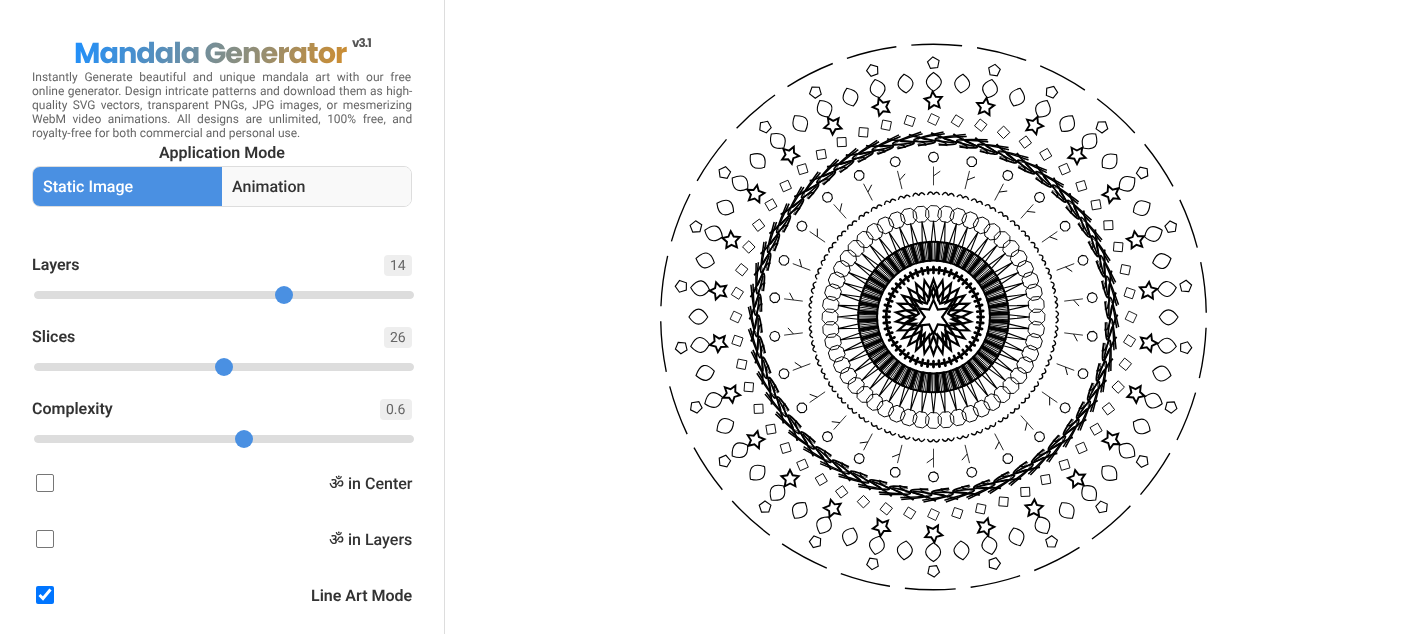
<svg xmlns="http://www.w3.org/2000/svg" width="1422" height="634">
<style>
.a{font:bold 28.75px Poppins;letter-spacing:-1px;fill:url(#g1)}
.b{font:bold 12px Poppins;letter-spacing:-1px;fill:#555}
.c{font:12px Roboto;fill:#666}
.d{font:600 16px Roboto;fill:#333}
.e{font:500 16px Roboto;fill:#fff}
.f{font:500 16px Roboto;fill:#333}
.g{font:14px Roboto;fill:#666}
.h{font:500 16px Noto Sans;fill:#333}
</style>
<defs>
<linearGradient id="g1" gradientUnits="userSpaceOnUse" x1="85" y1="3.2" x2="359" y2="103"><stop offset="0" stop-color="#1e90ff"/><stop offset="1" stop-color="#de8d1d"/></linearGradient>
</defs>
<rect width="100%" height="100%" fill="#fff"/>
<path fill="#ddd" d="M444 0h1v634H444z"/>
<rect fill="none" stroke="#ddd" x="32.5" y="166.5" width="379" height="40" rx="7.5"/>
<path fill="#4a90e2" d="M40 167h182v39h-182c-4 0-7-3-7-7v-25c0-4 3-7 7-7z"/>
<path fill="#f9f9f9" d="M222 167h182c4 0 7 3 7 7v25c0 4-3 7-7 7h-182z"/>
<rect fill="#eee" x="384" y="255" width="28" height="21" rx="4"/>
<rect fill="#ddd" stroke="#ddd" x="34.5" y="291.5" width="379" height="7" rx="3.5"/>
<circle fill="#4a90e2" cx="284" cy="295" r="9"/>
<rect fill="#eee" x="384" y="327" width="28" height="21" rx="4"/>
<rect fill="#ddd" stroke="#ddd" x="34.5" y="363.5" width="379" height="7" rx="3.5"/>
<circle fill="#4a90e2" cx="224" cy="367" r="9"/>
<rect fill="#eee" x="380" y="399" width="32" height="21" rx="4"/>
<rect fill="#ddd" stroke="#ddd" x="34.5" y="435.5" width="379" height="7" rx="3.5"/>
<circle fill="#4a90e2" cx="244" cy="439" r="9"/>
<rect fill="none" stroke="#767676" x="36.5" y="474.5" width="17" height="17" rx="1.5"/>
<rect fill="none" stroke="#767676" x="36.5" y="530.5" width="17" height="17" rx="1.5"/>
<rect fill="#0075ff" x="36" y="586" width="18" height="18" rx="2"/>
<path fill="none" stroke="#fff" stroke-width="2.9" d="M39.5 595l3.5 3.5l7.5-9"/>
<image href="1.png" x="660" y="43" width="547" height="548"/>
<text class="a" x="74" y="63">Mandala Generator</text>
<text class="b" x="352" y="47">v3.1</text>
<text class="c" x="32" y="81" word-spacing="3.75">Instantly Generate beautiful and unique mandala art with our free</text>
<text class="c" x="32" y="95" word-spacing="0.5">online generator. Design intricate patterns and download them as high-</text>
<text class="c" x="32" y="109" word-spacing="2.25">quality SVG vectors, transparent PNGs, JPG images, or mesmerizing</text>
<text class="c" x="32" y="123" word-spacing="3.5">WebM video animations. All designs are unlimited, 100% free, and</text>
<text class="c" x="32" y="137">royalty-free for both commercial and personal use.</text>
<text class="d" x="159" y="158">Application Mode</text>
<text class="e" x="43" y="192">Static Image</text>
<text class="f" x="232" y="192">Animation</text>
<text class="d" x="32" y="270">Layers</text>
<text class="g" x="390" y="270">14</text>
<text class="d" x="32" y="342">Slices</text>
<text class="g" x="390" y="342">26</text>
<text class="d" x="32" y="414">Complexity</text>
<text class="g" x="386" y="414">0.6</text>
<text class="h" x="329" y="489">ॐ</text>
<text class="f" x="348" y="489">in Center</text>
<text class="h" x="329" y="545">ॐ</text>
<text class="f" x="348" y="545">in Layers</text>
<text class="d" x="311" y="601">Line Art Mode</text>
</svg>
